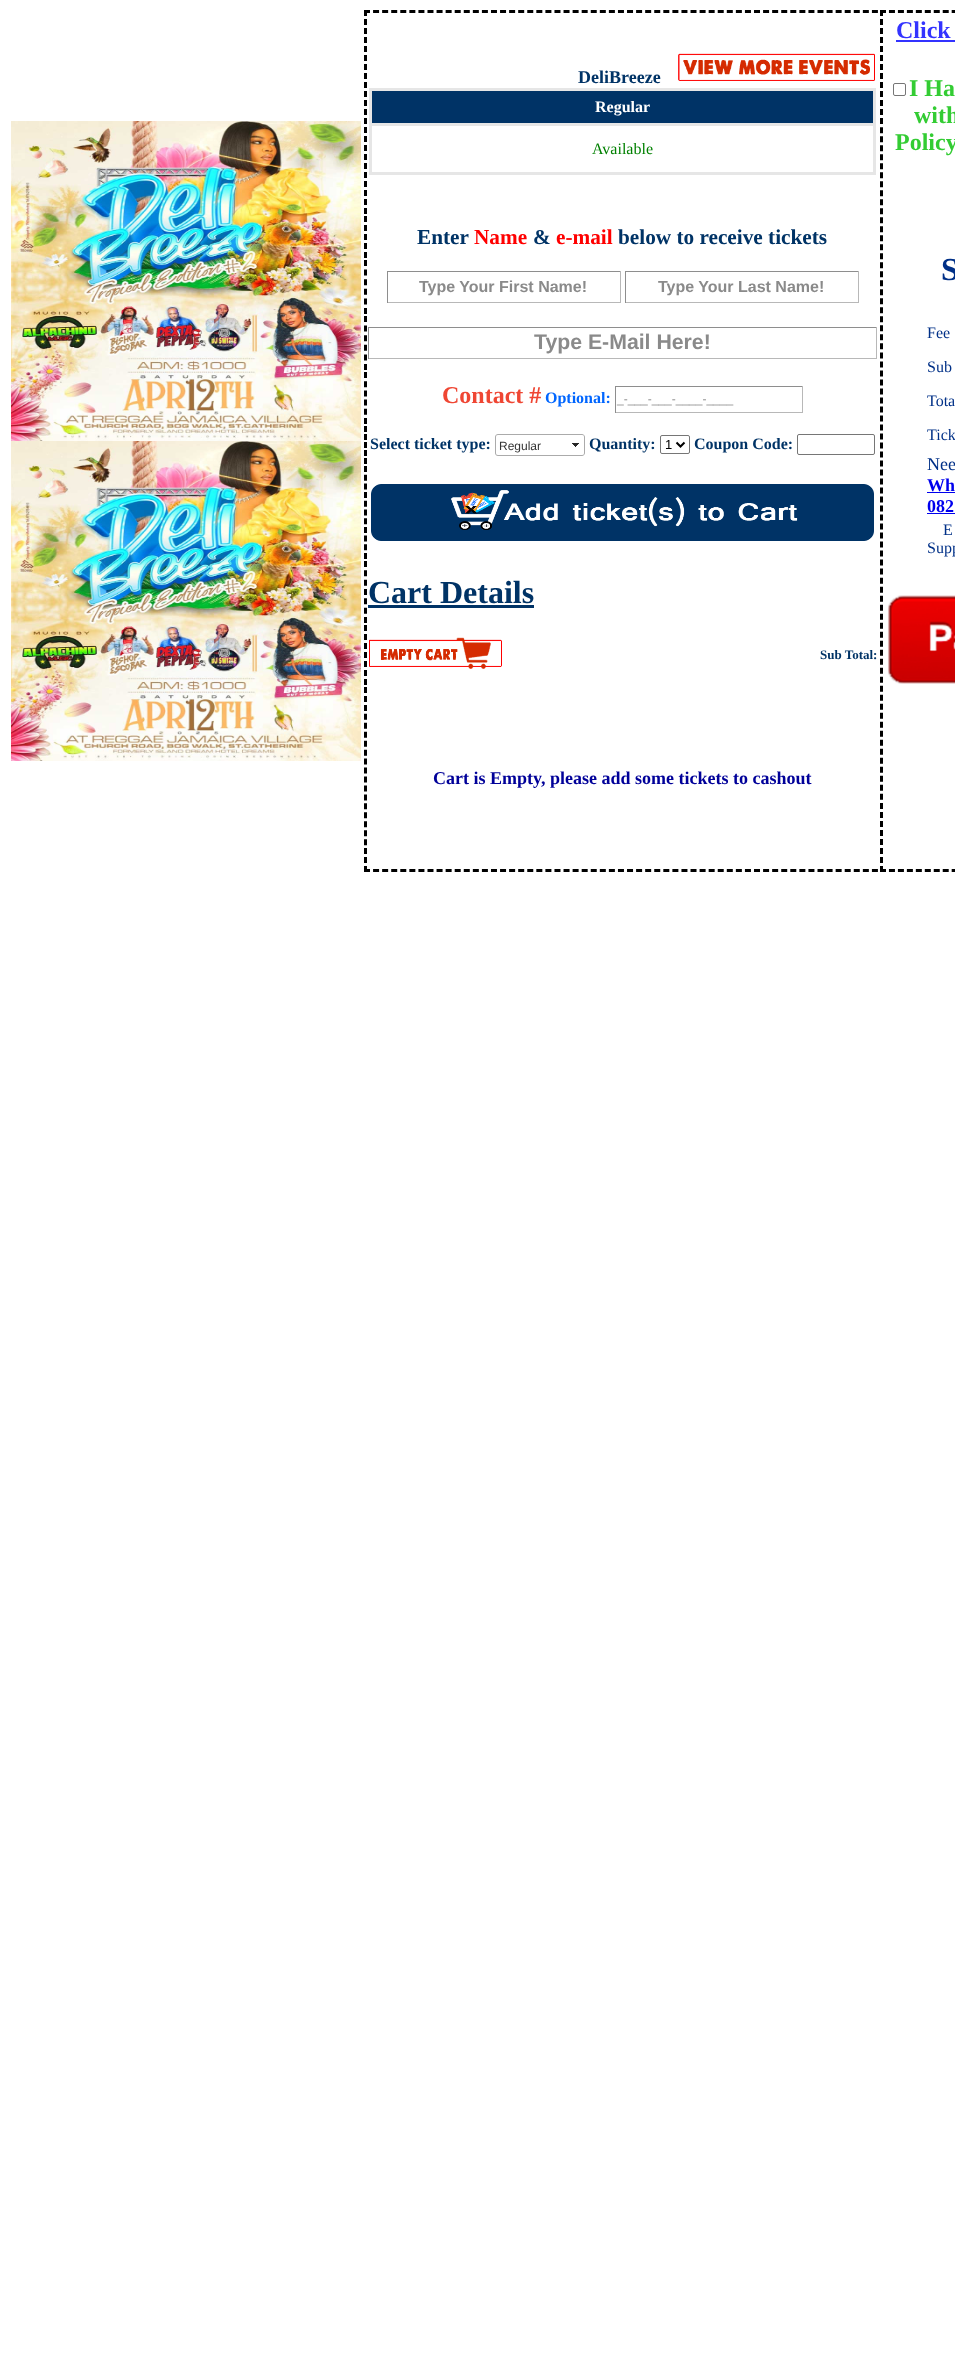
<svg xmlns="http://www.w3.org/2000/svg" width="955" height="2360">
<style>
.a{font:bold 18px Liberation Serif;fill:#036}
.b{font:bold 16px Liberation Serif;fill:#fff}
.c{font:16px Liberation Serif;fill:#008000}
.d{font:bold 24px Liberation Serif;fill:#33f}
.e{font:bold 24px Liberation Serif;fill:#3c3}
.f{font:bold 32px Liberation Serif;fill:#003087}
.g{font:16px Liberation Serif;fill:#003087}
.h{font:18px Liberation Serif;fill:#003087}
.i{font:bold 18px Liberation Serif;fill:#00e}
.j{font:bold 21.25px Liberation Serif;fill:#036}
.k{font:bold 21.25px Liberation Serif;fill:#f00}
.l{font:bold 16px Liberation Sans;fill:#8a8a8a}
.m{font:bold 21.25px Liberation Sans;fill:#8a8a8a}
.n{font:bold 24px Liberation Serif;fill:#ef4633}
.o{font:bold 16px Liberation Serif;fill:#06f}
.p{font:12px Liberation Sans;fill:#8a8a8a}
.q{font:bold 16px Liberation Serif;fill:#036}
.r{font:12px Liberation Sans;fill:#333}
.s{font:13px Liberation Sans;fill:#000}
.t{font:bold 32px Liberation Serif;fill:#036}
.u{font:bold 13px Liberation Serif;fill:#036}
.v{font:bold 18px Liberation Serif;fill:#009}
</style>
<rect width="100%" height="100%" fill="#fff"/>
<path fill="none" stroke="#000" stroke-width="3" stroke-dasharray="6 3.07" d="M364 11.5h514"/>
<path fill="none" stroke="#000" stroke-width="3" stroke-dasharray="6 3" d="M365.5 10v204"/>
<image href="1.png" x="678" y="53" width="197" height="28"/>
<path fill="#036" d="M372 91h501v32H372z"/>
<path fill="#e6e6e6" d="M369 88h507v3H369z"/>
<path fill="#e6e6e6" d="M369 123h507v3H369z"/>
<path fill="#e6e6e6" d="M873 123h3v52H873z"/>
<path fill="#e6e6e6" d="M873 88h3v38H873z"/>
<path fill="#e6e6e6" d="M369 172h507v3H369z"/>
<path fill="#e6e6e6" d="M369 123h3v52H369z"/>
<path fill="#e6e6e6" d="M369 88h3v38H369z"/>
<path fill="none" stroke="#000" stroke-width="3" stroke-dasharray="6 2.96" d="M880 11.5h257"/>
<path fill="none" stroke="#000" stroke-width="3" stroke-dasharray="6 2.96" d="M880 870.5h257"/>
<path fill="none" stroke="#000" stroke-width="3" stroke-dasharray="6 3.01" d="M881.5 10v862"/>
<path fill="#33f" d="M896 40h59v2H896z"/>
<rect fill="none" stroke="#767676" x="893.5" y="83.5" width="12" height="12" rx="1.5"/>
<path fill="#00e" d="M927 492h28v1H927z"/>
<path fill="#00e" d="M927 513h28v1H927z"/>
<image href="2.png" x="887" y="595" width="68" height="89"/>
<image href="3.png" x="11" y="121" width="350" height="320"/>
<image href="3.png" x="11" y="441" width="350" height="320"/>
<path fill="none" stroke="#000" stroke-width="3" stroke-dasharray="6 3" d="M365.5 216v42"/>
<path fill="none" stroke="#000" stroke-width="3" stroke-dasharray="6 3.6" d="M365.5 260v54"/>
<path fill="#8e8e8e" d="M387 271h234v1H387z"/>
<path fill="#b8b8b8" d="M620 271h1v32H620z"/>
<path fill="#b8b8b8" d="M387 302h234v1H387z"/>
<path fill="#8e8e8e" d="M387 271h1v32H387z"/>
<path fill="#8e8e8e" d="M625 271h234v1H625z"/>
<path fill="#b8b8b8" d="M858 271h1v32H858z"/>
<path fill="#b8b8b8" d="M625 302h234v1H625z"/>
<path fill="#8e8e8e" d="M625 271h1v32H625z"/>
<path fill="none" stroke="#000" stroke-width="3" stroke-dasharray="6 3.6" d="M365.5 316v54"/>
<path fill="#8e8e8e" d="M368 327h509v1H368z"/>
<path fill="#b8b8b8" d="M876 327h1v32H876z"/>
<path fill="#b8b8b8" d="M368 358h509v1H368z"/>
<path fill="#8e8e8e" d="M368 327h1v32H368z"/>
<path fill="none" stroke="#000" stroke-width="3" stroke-dasharray="6 3.2" d="M365.5 372v52"/>
<path fill="#8e8e8e" d="M615 386h188v1H615z"/>
<path fill="#b8b8b8" d="M802 386h1v27H802z"/>
<path fill="#b8b8b8" d="M615 412h188v1H615z"/>
<path fill="#8e8e8e" d="M615 386h1v27H615z"/>
<path fill="none" stroke="#000" stroke-width="3" stroke-dasharray="6 2" d="M365.5 426v38"/>
<image href="4.png" x="495" y="434" width="74" height="22"/>
<image href="5.png" x="569" y="434" width="16" height="22"/>
<rect fill="none" stroke="#767676" x="660.5" y="435.5" width="29" height="18" rx="1.5"/>
<path fill="none" stroke="#000" stroke-width="2" d="M676.5 442.5l4 4l4-4"/>
<rect fill="none" stroke="#767676" x="797.5" y="434.5" width="77" height="20" rx="1.5"/>
<path fill="none" stroke="#000" stroke-width="3" stroke-dasharray="6 2.7" d="M365.5 466v93"/>
<image href="6.png" x="371" y="484" width="503" height="57"/>
<path fill="none" stroke="#000" stroke-width="3" stroke-dasharray="6 3.33" d="M365.5 561v62"/>
<path fill="#036" d="M368 605h166v3H368z"/>
<path fill="none" stroke="#000" stroke-width="3" stroke-dasharray="6 3" d="M365.5 625v60"/>
<image href="7.png" x="369" y="637" width="133" height="32"/>
<path fill="none" stroke="#000" stroke-width="3" stroke-dasharray="6 3.07" d="M364 870.5h514"/>
<path fill="none" stroke="#000" stroke-width="3" stroke-dasharray="6 2.95" d="M365.5 687v185"/>
<text class="a" x="578" y="83">DeliBreeze</text>
<text class="b" x="595" y="112">Regular</text>
<text class="c" x="592" y="154">Available</text>
<text class="d" x="896" y="38">Click</text>
<text class="e" x="909" y="96">I Ha</text>
<text class="e" x="914" y="123">with</text>
<text class="e" x="895" y="150">Policy</text>
<text class="f" x="941" y="280">S</text>
<text class="g" x="927" y="338">Fee</text>
<text class="g" x="927" y="372">Sub</text>
<text class="g" x="927" y="406">Tota</text>
<text class="g" x="927" y="440">Tick</text>
<text class="h" x="927" y="470">Nee</text>
<text class="i" x="927" y="491">Wh</text>
<text class="i" x="927" y="512">082</text>
<text class="g" x="943" y="535">E</text>
<text class="g" x="927" y="553">Supp</text>
<text class="j" x="417" y="244">Enter</text>
<text class="k" x="474" y="244">Name</text>
<text class="j" x="533" y="244">&amp;</text>
<text class="k" x="556" y="244">e-mail</text>
<text class="j" x="618" y="244">below to receive tickets</text>
<text class="l" x="419" y="292">Type Your First Name!</text>
<text class="l" x="658" y="292">Type Your Last Name!</text>
<text class="m" x="534" y="349">Type E-Mail Here!</text>
<text class="n" x="442" y="403">Contact #</text>
<text class="o" x="545" y="403">Optional:</text>
<text class="p" x="617" y="403">_-___-___-____-____</text>
<text class="q" x="370" y="449">Select ticket type:</text>
<text class="r" x="499" y="450">Regular</text>
<text class="q" x="589" y="449">Quantity:</text>
<text class="s" x="665" y="449">1</text>
<text class="q" x="694" y="449">Coupon Code:</text>
<text class="t" x="368" y="603">Cart Details</text>
<text class="u" x="820" y="659">Sub Total:</text>
<text class="v" x="433" y="784">Cart is Empty, please add some tickets to cashout</text>
</svg>
